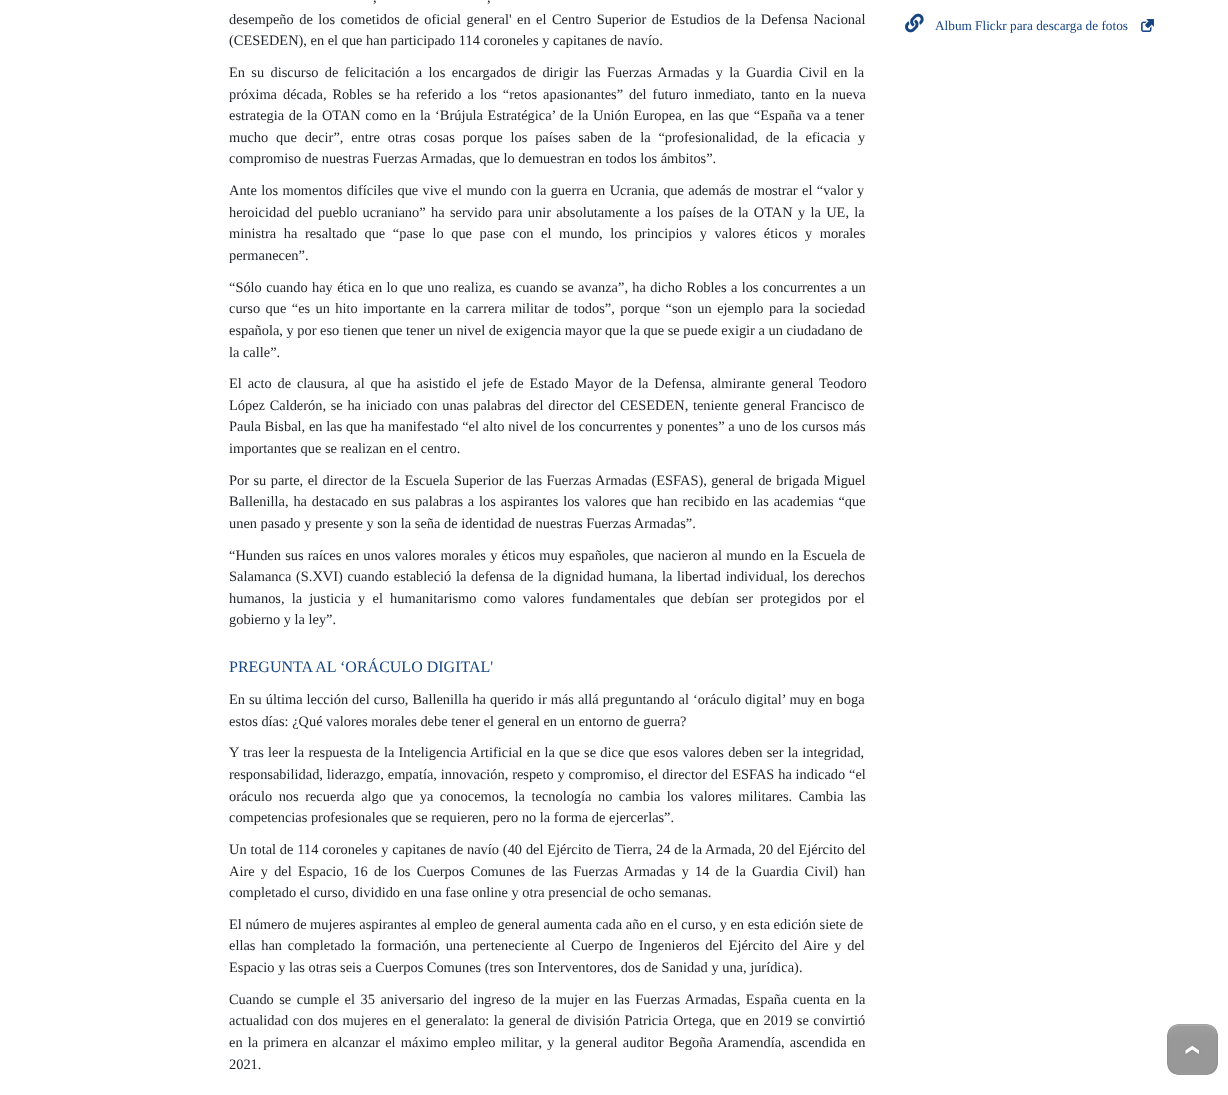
<svg xmlns="http://www.w3.org/2000/svg" width="1228" height="1095">
<style>
.a{font:14.4px Liberation Serif;fill:#212529}
.b{font:16px Liberation Serif;fill:#154481}
.c{font:13.25px Liberation Serif;fill:#154481}
</style>
<rect width="100%" height="100%" fill="#fff"/>
<image href="1.png" x="905" y="13" width="19" height="20"/>
<image href="2.png" x="1141" y="19" width="13" height="13"/>
<image href="3.png" x="1167" y="1024" width="51" height="51"/>
<text class="a" x="373" y="2" word-spacing="3">,</text>
<text class="a" x="487" y="2" word-spacing="3">,</text>
<text class="a" x="229" y="24" word-spacing="1.9">desempeño de los cometidos de oficial general' en el Centro Superior de Estudios de la Defensa Nacional</text>
<text class="a" x="229" y="45">(CESEDEN), en el que han participado 114 coroneles y capitanes de navío.</text>
<text class="a" x="229" y="77" word-spacing="2.75">En su discurso de felicitación a los encargados de dirigir las Fuerzas Armadas y la Guardia Civil en la</text>
<text class="a" x="229" y="99" word-spacing="2.4">próxima década, Robles se ha referido a los “retos apasionantes” del futuro inmediato, tanto en la nueva</text>
<text class="a" x="229" y="120" word-spacing="1">estrategia de la OTAN como en la ‘Brújula Estratégica’ de la Unión Europea, en las que “España va a tener</text>
<text class="a" x="229" y="142" word-spacing="4.25">mucho que decir”, entre otras cosas porque los países saben de la “profesionalidad, de la eficacia y</text>
<text class="a" x="229" y="163">compromiso de nuestras Fuerzas Armadas, que lo demuestran en todos los ámbitos”.</text>
<text class="a" x="229" y="195" word-spacing="0.75">Ante los momentos difíciles que vive el mundo con la guerra en Ucrania, que además de mostrar el “valor y</text>
<text class="a" x="229" y="217" word-spacing="1.75">heroicidad del pueblo ucraniano” ha servido para unir absolutamente a los países de la OTAN y la UE, la</text>
<text class="a" x="229" y="238" word-spacing="4">ministra ha resaltado que “pase lo que pase con el mundo, los principios y valores éticos y morales</text>
<text class="a" x="229" y="260">permanecen”.</text>
<text class="a" x="229" y="292" word-spacing="0.75">“Sólo cuando hay ética en lo que uno realiza, es cuando se avanza”, ha dicho Robles a los concurrentes a un</text>
<text class="a" x="229" y="313" word-spacing="1.8">curso que “es un hito importante en la carrera militar de todos”, porque “son un ejemplo para la sociedad</text>
<text class="a" x="229" y="335">española, y por eso tienen que tener un nivel de exigencia mayor que la que se puede exigir a un ciudadano de</text>
<text class="a" x="229" y="357">la calle”.</text>
<text class="a" x="229" y="388" word-spacing="2.25">El acto de clausura, al que ha asistido el jefe de Estado Mayor de la Defensa, almirante general Teodoro</text>
<text class="a" x="229" y="410" word-spacing="1.1">López Calderón, se ha iniciado con unas palabras del director del CESEDEN, teniente general Francisco de</text>
<text class="a" x="229" y="431" word-spacing="0.2">Paula Bisbal, en las que ha manifestado “el alto nivel de los concurrentes y ponentes” a uno de los cursos más</text>
<text class="a" x="229" y="453">importantes que se realizan en el centro.</text>
<text class="a" x="229" y="485" word-spacing="0.9">Por su parte, el director de la Escuela Superior de las Fuerzas Armadas (ESFAS), general de brigada Miguel</text>
<text class="a" x="229" y="506" word-spacing="1.25">Ballenilla, ha destacado en sus palabras a los aspirantes los valores que han recibido en las academias “que</text>
<text class="a" x="229" y="528">unen pasado y presente y son la seña de identidad de nuestras Fuerzas Armadas”.</text>
<text class="a" x="229" y="560" word-spacing="0.6">“Hunden sus raíces en unos valores morales y éticos muy españoles, que nacieron al mundo en la Escuela de</text>
<text class="a" x="229" y="581" word-spacing="1.1">Salamanca (S.XVI) cuando estableció la defensa de la dignidad humana, la libertad individual, los derechos</text>
<text class="a" x="229" y="603" word-spacing="3.6">humanos, la justicia y el humanitarismo como valores fundamentales que debían ser protegidos por el</text>
<text class="a" x="229" y="624">gobierno y la ley”.</text>
<text class="b" x="229" y="672">PREGUNTA AL ‘ORÁCULO DIGITAL'</text>
<text class="a" x="229" y="704" word-spacing="0.4">En su última lección del curso, Ballenilla ha querido ir más allá preguntando al ‘oráculo digital’ muy en boga</text>
<text class="a" x="229" y="726">estos días: ¿Qué valores morales debe tener el general en un entorno de guerra?</text>
<text class="a" x="229" y="757" word-spacing="0.6">Y tras leer la respuesta de la Inteligencia Artificial en la que se dice que esos valores deben ser la integridad,</text>
<text class="a" x="229" y="779" word-spacing="0.25">responsabilidad, liderazgo, empatía, innovación, respeto y compromiso, el director del ESFAS ha indicado “el</text>
<text class="a" x="229" y="801" word-spacing="2.9">oráculo nos recuerda algo que ya conocemos, la tecnología no cambia los valores militares. Cambia las</text>
<text class="a" x="229" y="822">competencias profesionales que se requieren, pero no la forma de ejercerlas”.</text>
<text class="a" x="229" y="854" word-spacing="0.25">Un total de 114 coroneles y capitanes de navío (40 del Ejército de Tierra, 24 de la Armada, 20 del Ejército del</text>
<text class="a" x="229" y="876" word-spacing="2.6">Aire y del Espacio, 16 de los Cuerpos Comunes de las Fuerzas Armadas y 14 de la Guardia Civil) han</text>
<text class="a" x="229" y="897">completado el curso, dividido en una fase online y otra presencial de ocho semanas.</text>
<text class="a" x="229" y="929">El número de mujeres aspirantes al empleo de general aumenta cada año en el curso, y en esta edición siete de</text>
<text class="a" x="229" y="950" word-spacing="2.25">ellas han completado la formación, una perteneciente al Cuerpo de Ingenieros del Ejército del Aire y del</text>
<text class="a" x="229" y="972">Espacio y las otras seis a Cuerpos Comunes (tres son Interventores, dos de Sanidad y una, jurídica).</text>
<text class="a" x="229" y="1004" word-spacing="1.9">Cuando se cumple el 35 aniversario del ingreso de la mujer en las Fuerzas Armadas, España cuenta en la</text>
<text class="a" x="229" y="1025" word-spacing="0.9">actualidad con dos mujeres en el generalato: la general de división Patricia Ortega, que en 2019 se convirtió</text>
<text class="a" x="229" y="1047" word-spacing="1.6">en la primera en alcanzar el máximo empleo militar, y la general auditor Begoña Aramendía, ascendida en</text>
<text class="a" x="229" y="1069">2021.</text>
<text class="c" x="935" y="30">Album Flickr para descarga de fotos</text>
</svg>
